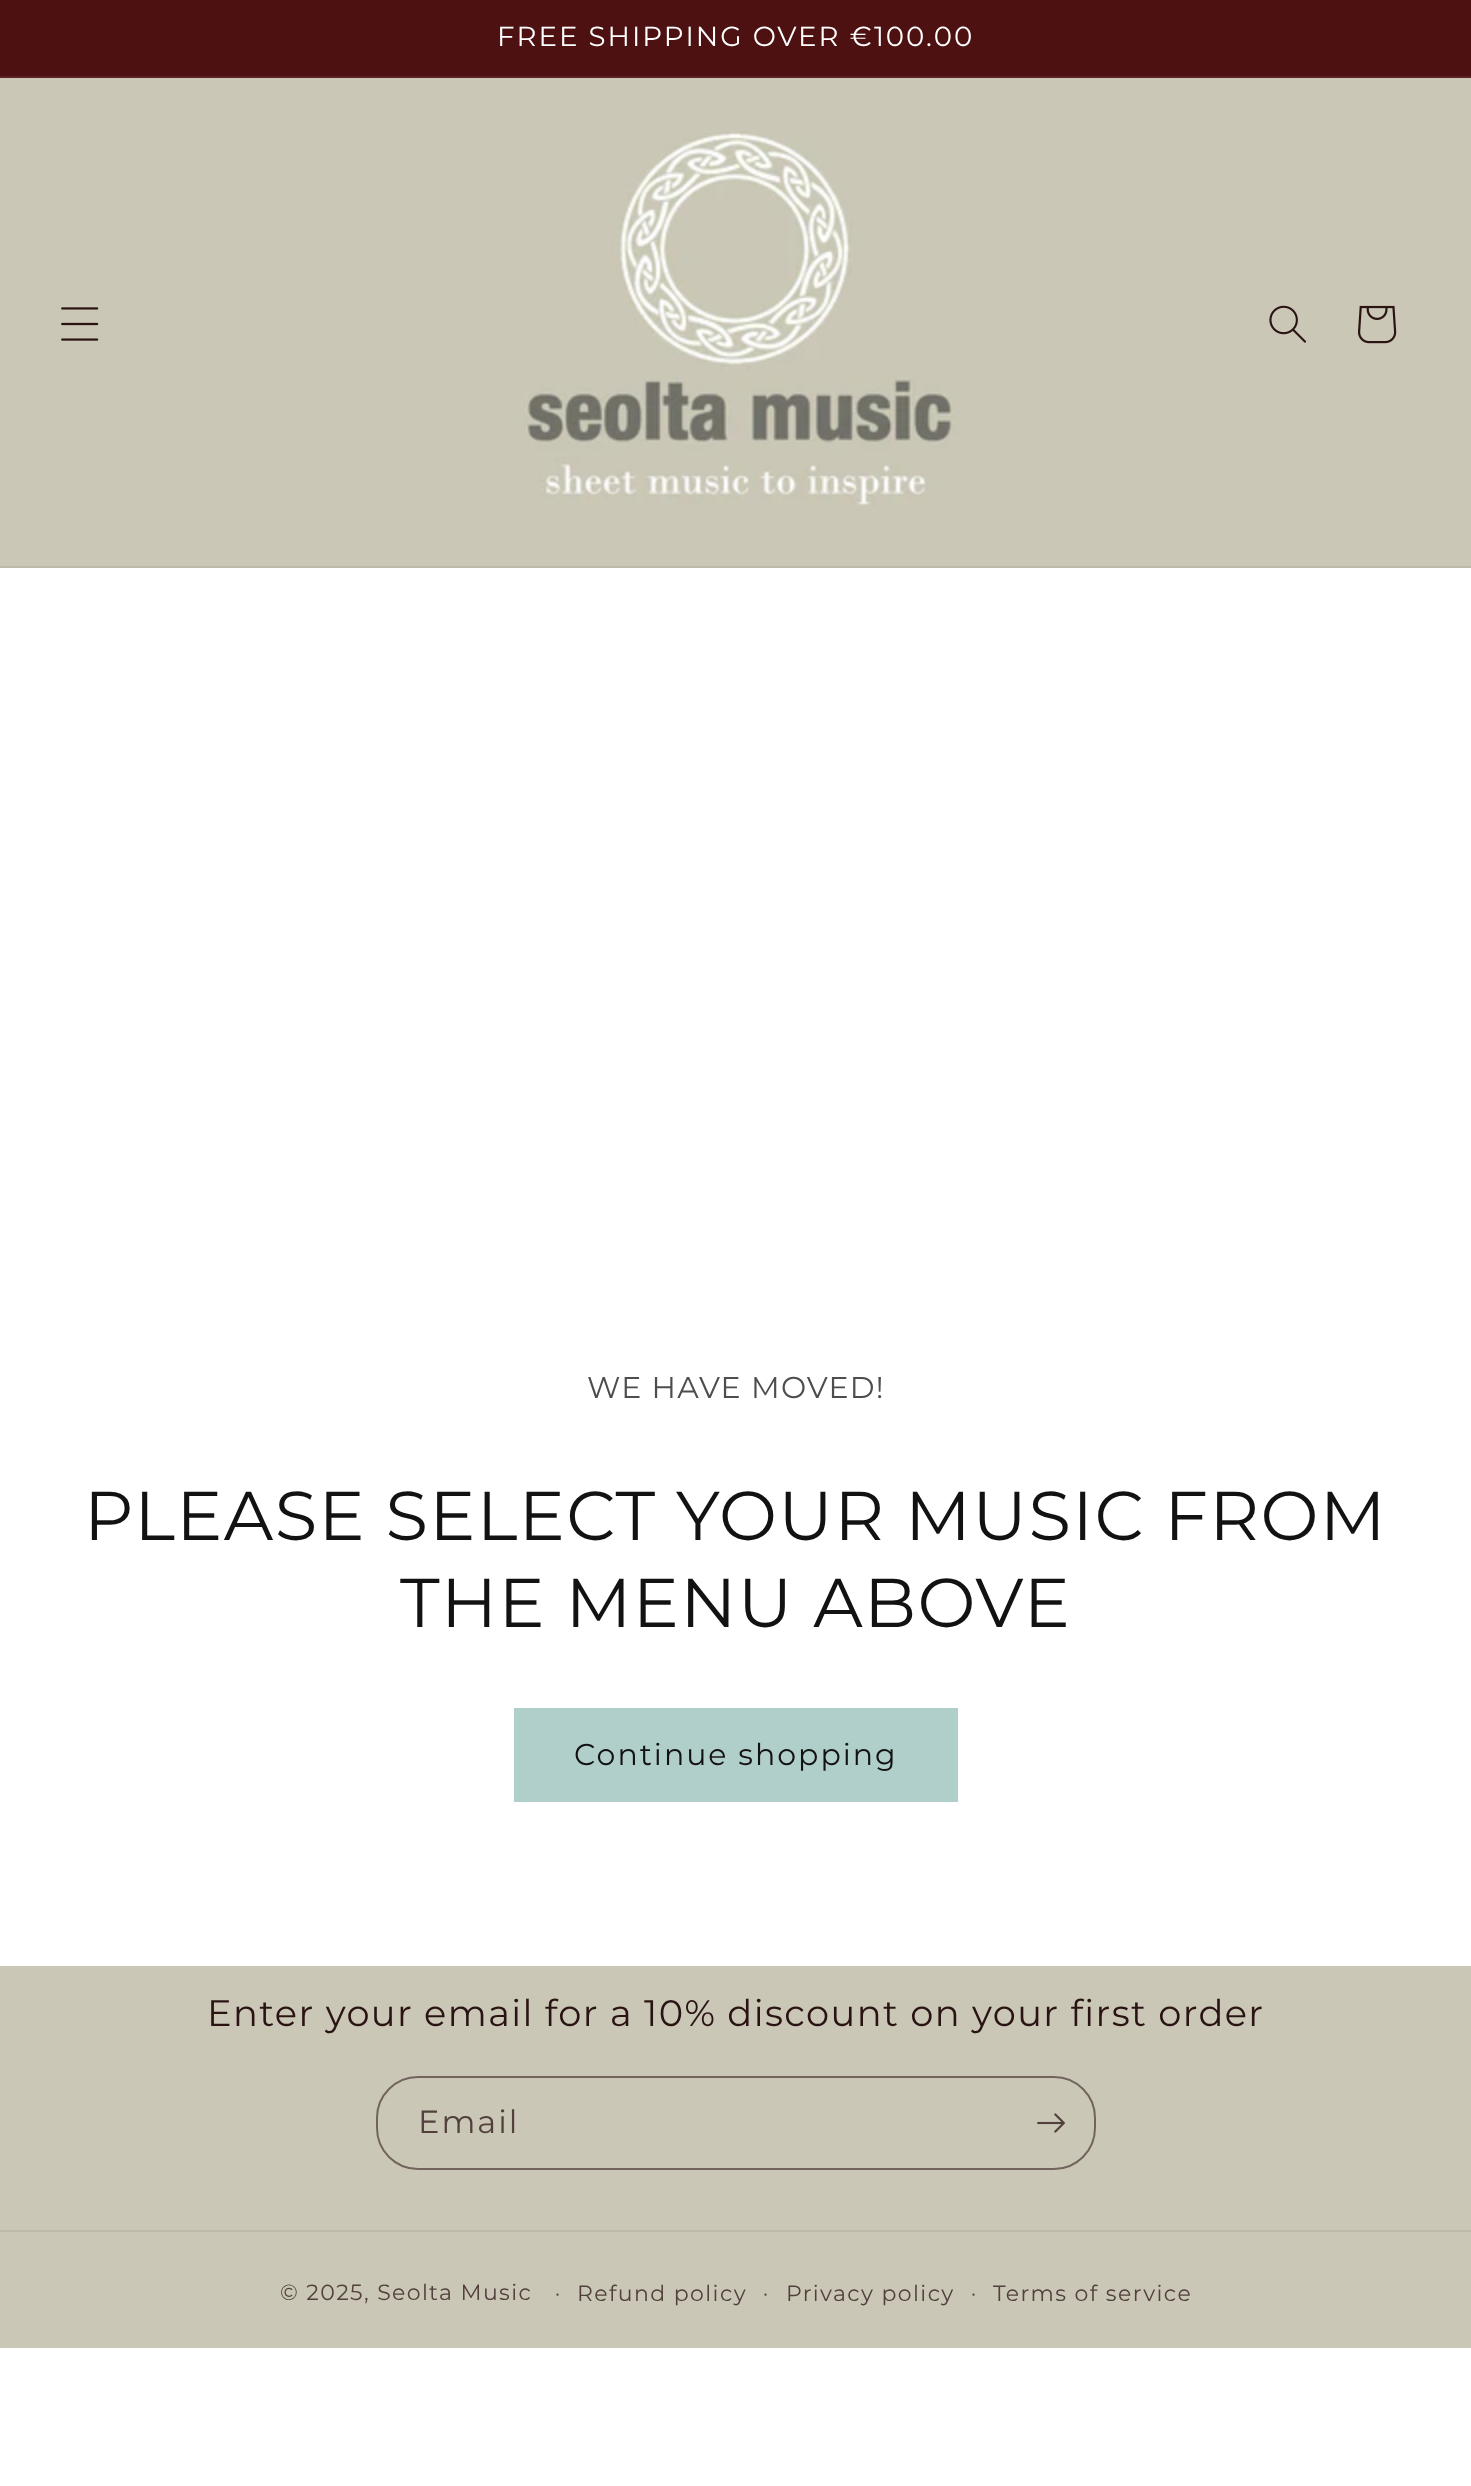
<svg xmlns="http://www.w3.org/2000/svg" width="1471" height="2486">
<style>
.a{font:27.6px Montserrat;letter-spacing:2px;fill:#fff}
.b{font:30px Montserrat;letter-spacing:1.25px;fill:#4d4d4d}
.c{font:69px Montserrat;letter-spacing:1.38px;fill:#121212}
.d{font:30px Montserrat;letter-spacing:2px;fill:#121212}
.e{font:36.8px Montserrat;letter-spacing:1.38px;fill:#291313}
.f{font:32px Montserrat;letter-spacing:2px;fill:#52403c}
.g{font:22px Montserrat;letter-spacing:1.4px;fill:#52403c}
.h{font:20px Montserrat;letter-spacing:1.4px;fill:#52403c}
</style>
<rect width="100%" height="100%" fill="#fff"/>
<path fill="#4d1111" d="M0 0h1471v76H0z"/>
<path fill="#5b2424" d="M0 76h1471v2H0z"/>
<path fill="#cbc7b7" d="M0 78h1471v488H0z"/>
<path fill="#beb9aa" d="M0 566h1471v2H0z"/>
<image href="1.png" x="61" y="307" width="38" height="34"/>
<image href="2.png" x="524" y="132" width="432" height="374"/>
<image href="3.png" x="1269" y="305" width="37" height="38"/>
<image href="4.png" x="1358" y="305" width="39" height="39"/>
<path fill="#b1cfca" d="M514 1708h444v94H514z"/>
<path fill="#cbc7b7" d="M0 1966h1471v382H0z"/>
<rect fill="none" stroke="#72645d" stroke-width="2" x="377" y="2077" width="718" height="92" rx="41"/>
<image href="5.png" x="1037" y="2113" width="28" height="20"/>
<path fill="#beb9aa" d="M0 2230h1471v2H0z"/>
<text class="a" x="497" y="46">FREE SHIPPING OVER €100.00</text>
<text class="b" x="587" y="1398">WE HAVE MOVED!</text>
<text class="c" x="84" y="1540">PLEASE SELECT YOUR MUSIC FROM</text>
<text class="c" x="400" y="1627">THE MENU ABOVE</text>
<text class="d" x="574" y="1765">Continue shopping</text>
<text class="e" x="207" y="2026">Enter your email for a 10% discount on your first order</text>
<text class="f" x="418" y="2133">Email</text>
<text class="g" x="280" y="2300">© 2025, Seolta Music</text>
<text class="h" x="555" y="2300">·</text>
<text class="g" x="577" y="2301">Refund policy</text>
<text class="h" x="763" y="2300">·</text>
<text class="g" x="786" y="2301">Privacy policy</text>
<text class="h" x="971" y="2300">·</text>
<text class="g" x="993" y="2301">Terms of service</text>
</svg>
